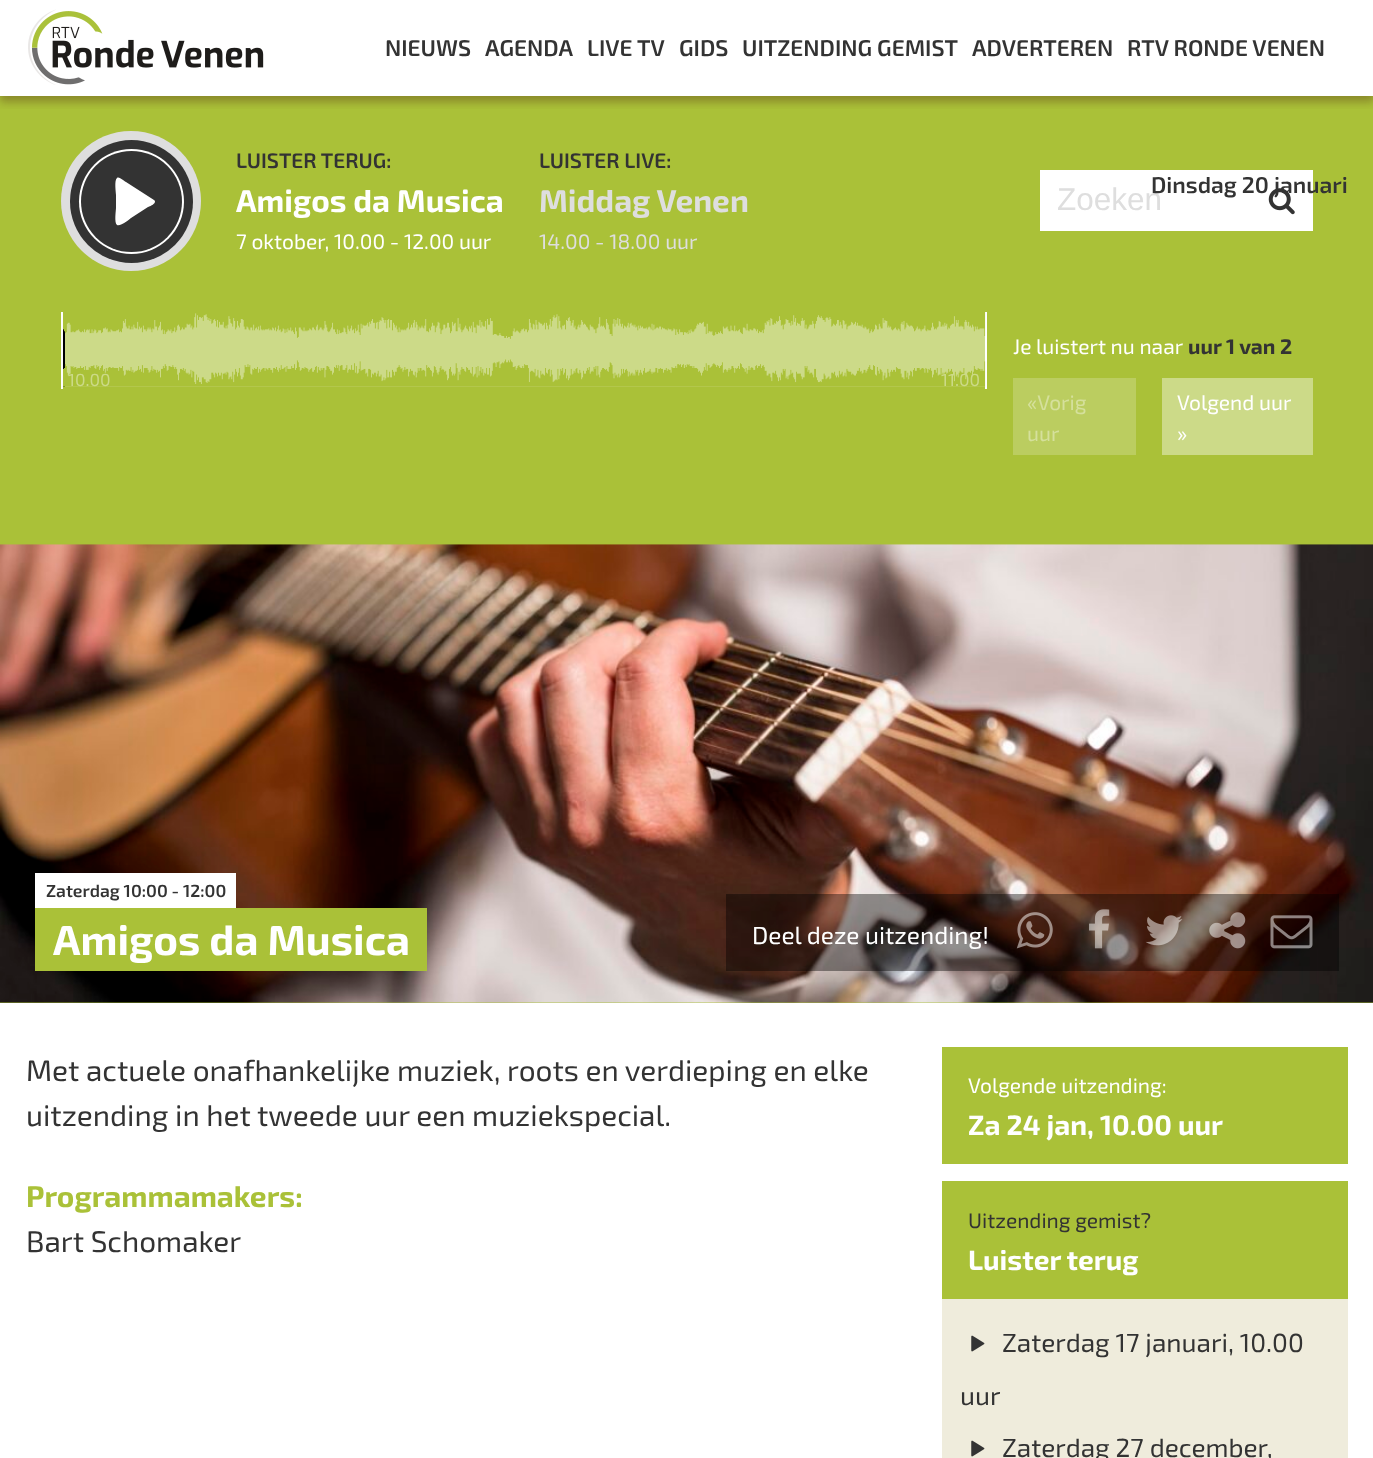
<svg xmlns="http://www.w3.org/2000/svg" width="1373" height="1458">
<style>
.a{font:600 22.75px 'Exo 2';fill:#333}
.b{font:600 21px 'Exo 2';fill:#333}
.c{font:bold 31.5px 'Exo 2';fill:#fff}
.d{font:21px 'Exo 2';fill:#fff}
.e{font:bold 31.5px 'Exo 2';fill:#dedede}
.f{font:21px 'Exo 2';fill:#dedede}
.g{font:31.5px Liberation Sans;fill:#dedede}
.h{font:17.5px 'Exo 2';fill:#ccda88}
.i{font:bold 21px 'Exo 2';fill:#333}
.j{font:21px 'Exo 2';fill:#d5e09c}
.k{font:600 17.5px 'Exo 2';fill:#333}
.l{font:bold 42px 'Exo 2';fill:#fff}
.m{font:24.5px 'Exo 2';fill:#fff}
.n{font:29.75px 'Exo 2';fill:#333}
.o{font:bold 29.75px 'Exo 2';fill:#aac138}
.p{font:bold 28px 'Exo 2';fill:#fff}
.q{font:21px 'Exo 2';fill:#333}
.r{font:26.25px 'Exo 2';fill:#333}
</style>
<defs>
<clipPath id="clip1"><path d="M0 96h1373v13H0z"/></clipPath>
</defs>
<rect width="100%" height="100%" fill="#fff"/>
<path fill="#aac138" d="M0 96h1373v907H0z"/>
<g clip-path="url(#clip1)">
<path fill="#430b0a4d" filter="blur(4.5px)" d="M0 5h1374v97H0z"/>
</g>
<image href="1.png" x="28" y="9" width="236" height="76"/>
<circle fill="#dedede" cx="131" cy="201" r="70"/>
<circle fill="#333" cx="131.5" cy="201.5" r="61.5"/>
<circle fill="#fff" cx="131.5" cy="201.5" r="52.5"/>
<circle fill="#333" cx="131.5" cy="201.5" r="50.5"/>
<path fill="#fff" d="M154 200c4 3-5 7-6 7l-17 11c-1 1-11 9-14 7c-3-2-1-15-1-17v-13c0-2-2-15 1-17c2-2 8 4 9 4z"/>
<path fill="#fff" d="M1040 170h273v61H1040z"/>
<image href="2.png" x="1268" y="188" width="27" height="27"/>
<path fill="#fff" d="M985 312h2v77H985z"/>
<path fill="#fff" d="M61 312h2v77H61z"/>
<path fill="#000" d="M63 329h2v58H63z"/>
<path fill="#ccda88" d="M65 313h920v74H65z"/>
<image href="3.png" x="63" y="312" width="923" height="75"/>
<path fill="#bbcd60" d="M1013 378h123v77H1013z"/>
<path fill="#ccda88" d="M1162 378h151v77H1162z"/>
<image href="4.png" x="0" y="544" width="1373" height="459"/>
<path fill="#fff" d="M35 873h201v35H35z"/>
<path fill="#aac138" d="M35 908h392v63H35z"/>
<path fill="#00000066" d="M726 894h613v77H726z"/>
<image href="5.png" x="1016" y="912" width="37" height="37"/>
<image href="6.png" x="1089" y="909" width="21" height="40"/>
<image href="7.png" x="1146" y="915" width="37" height="31"/>
<image href="8.png" x="1209" y="912" width="37" height="37"/>
<image href="9.png" x="1270" y="915" width="43" height="34"/>
<path fill="#aac138" d="M942 1047h406v117H942z"/>
<path fill="#aac138" d="M942 1181h406v118H942z"/>
<path fill="#efecdc" d="M942 1299h406v159H942z"/>
<image href="10.png" x="971" y="1335" width="14" height="17"/>
<image href="10.png" x="971" y="1440" width="14" height="17"/>
<text class="a" x="385" y="56">NIEUWS</text>
<text class="a" x="485" y="56">AGENDA</text>
<text class="a" x="587" y="56">LIVE TV</text>
<text class="a" x="679" y="56">GIDS</text>
<text class="a" x="742" y="56">UITZENDING GEMIST</text>
<text class="a" x="972" y="56">ADVERTEREN</text>
<text class="a" x="1127" y="56">RTV RONDE VENEN</text>
<text class="b" x="236" y="168">LUISTER TERUG:</text>
<text class="c" x="236" y="212">Amigos da Musica</text>
<text class="d" x="236" y="249">7 oktober, 10.00 - 12.00 uur</text>
<text class="b" x="539" y="168">LUISTER LIVE:</text>
<text class="e" x="539" y="212">Middag Venen</text>
<text class="f" x="539" y="249">14.00 - 18.00 uur</text>
<text class="g" x="1057" y="210">Zoeken</text>
<text class="a" x="1151" y="193">Dinsdag 20 januari</text>
<text class="h" x="68" y="386">10.00</text>
<text class="h" x="941" y="386">11.00</text>
<text class="d" x="1013" y="354">Je luistert nu naar</text>
<text class="i" x="1188" y="354">uur 1 van 2</text>
<text class="j" x="1027" y="410">«Vorig</text>
<text class="j" x="1027" y="441">uur</text>
<text class="d" x="1177" y="410">Volgend uur</text>
<text class="d" x="1177" y="441">»</text>
<text class="k" x="46" y="897">Zaterdag 10:00 - 12:00</text>
<text class="l" x="53" y="955">Amigos da Musica</text>
<text class="m" x="752" y="944">Deel deze uitzending!</text>
<text class="n" x="26" y="1081">Met actuele onafhankelijke muziek, roots en verdieping en elke</text>
<text class="n" x="26" y="1126">uitzending in het tweede uur een muziekspecial.</text>
<text class="o" x="26" y="1207">Programmamakers:</text>
<text class="n" x="26" y="1252">Bart Schomaker</text>
<text class="d" x="968" y="1093">Volgende uitzending:</text>
<text class="p" x="968" y="1135">Za 24 jan, 10.00 uur</text>
<text class="q" x="968" y="1228">Uitzending gemist?</text>
<text class="p" x="968" y="1270">Luister terug</text>
<text class="r" x="1002" y="1352">Zaterdag 17 januari, 10.00</text>
<text class="r" x="960" y="1405">uur</text>
<text class="r" x="1002" y="1457">Zaterdag 27 december,</text>
</svg>
